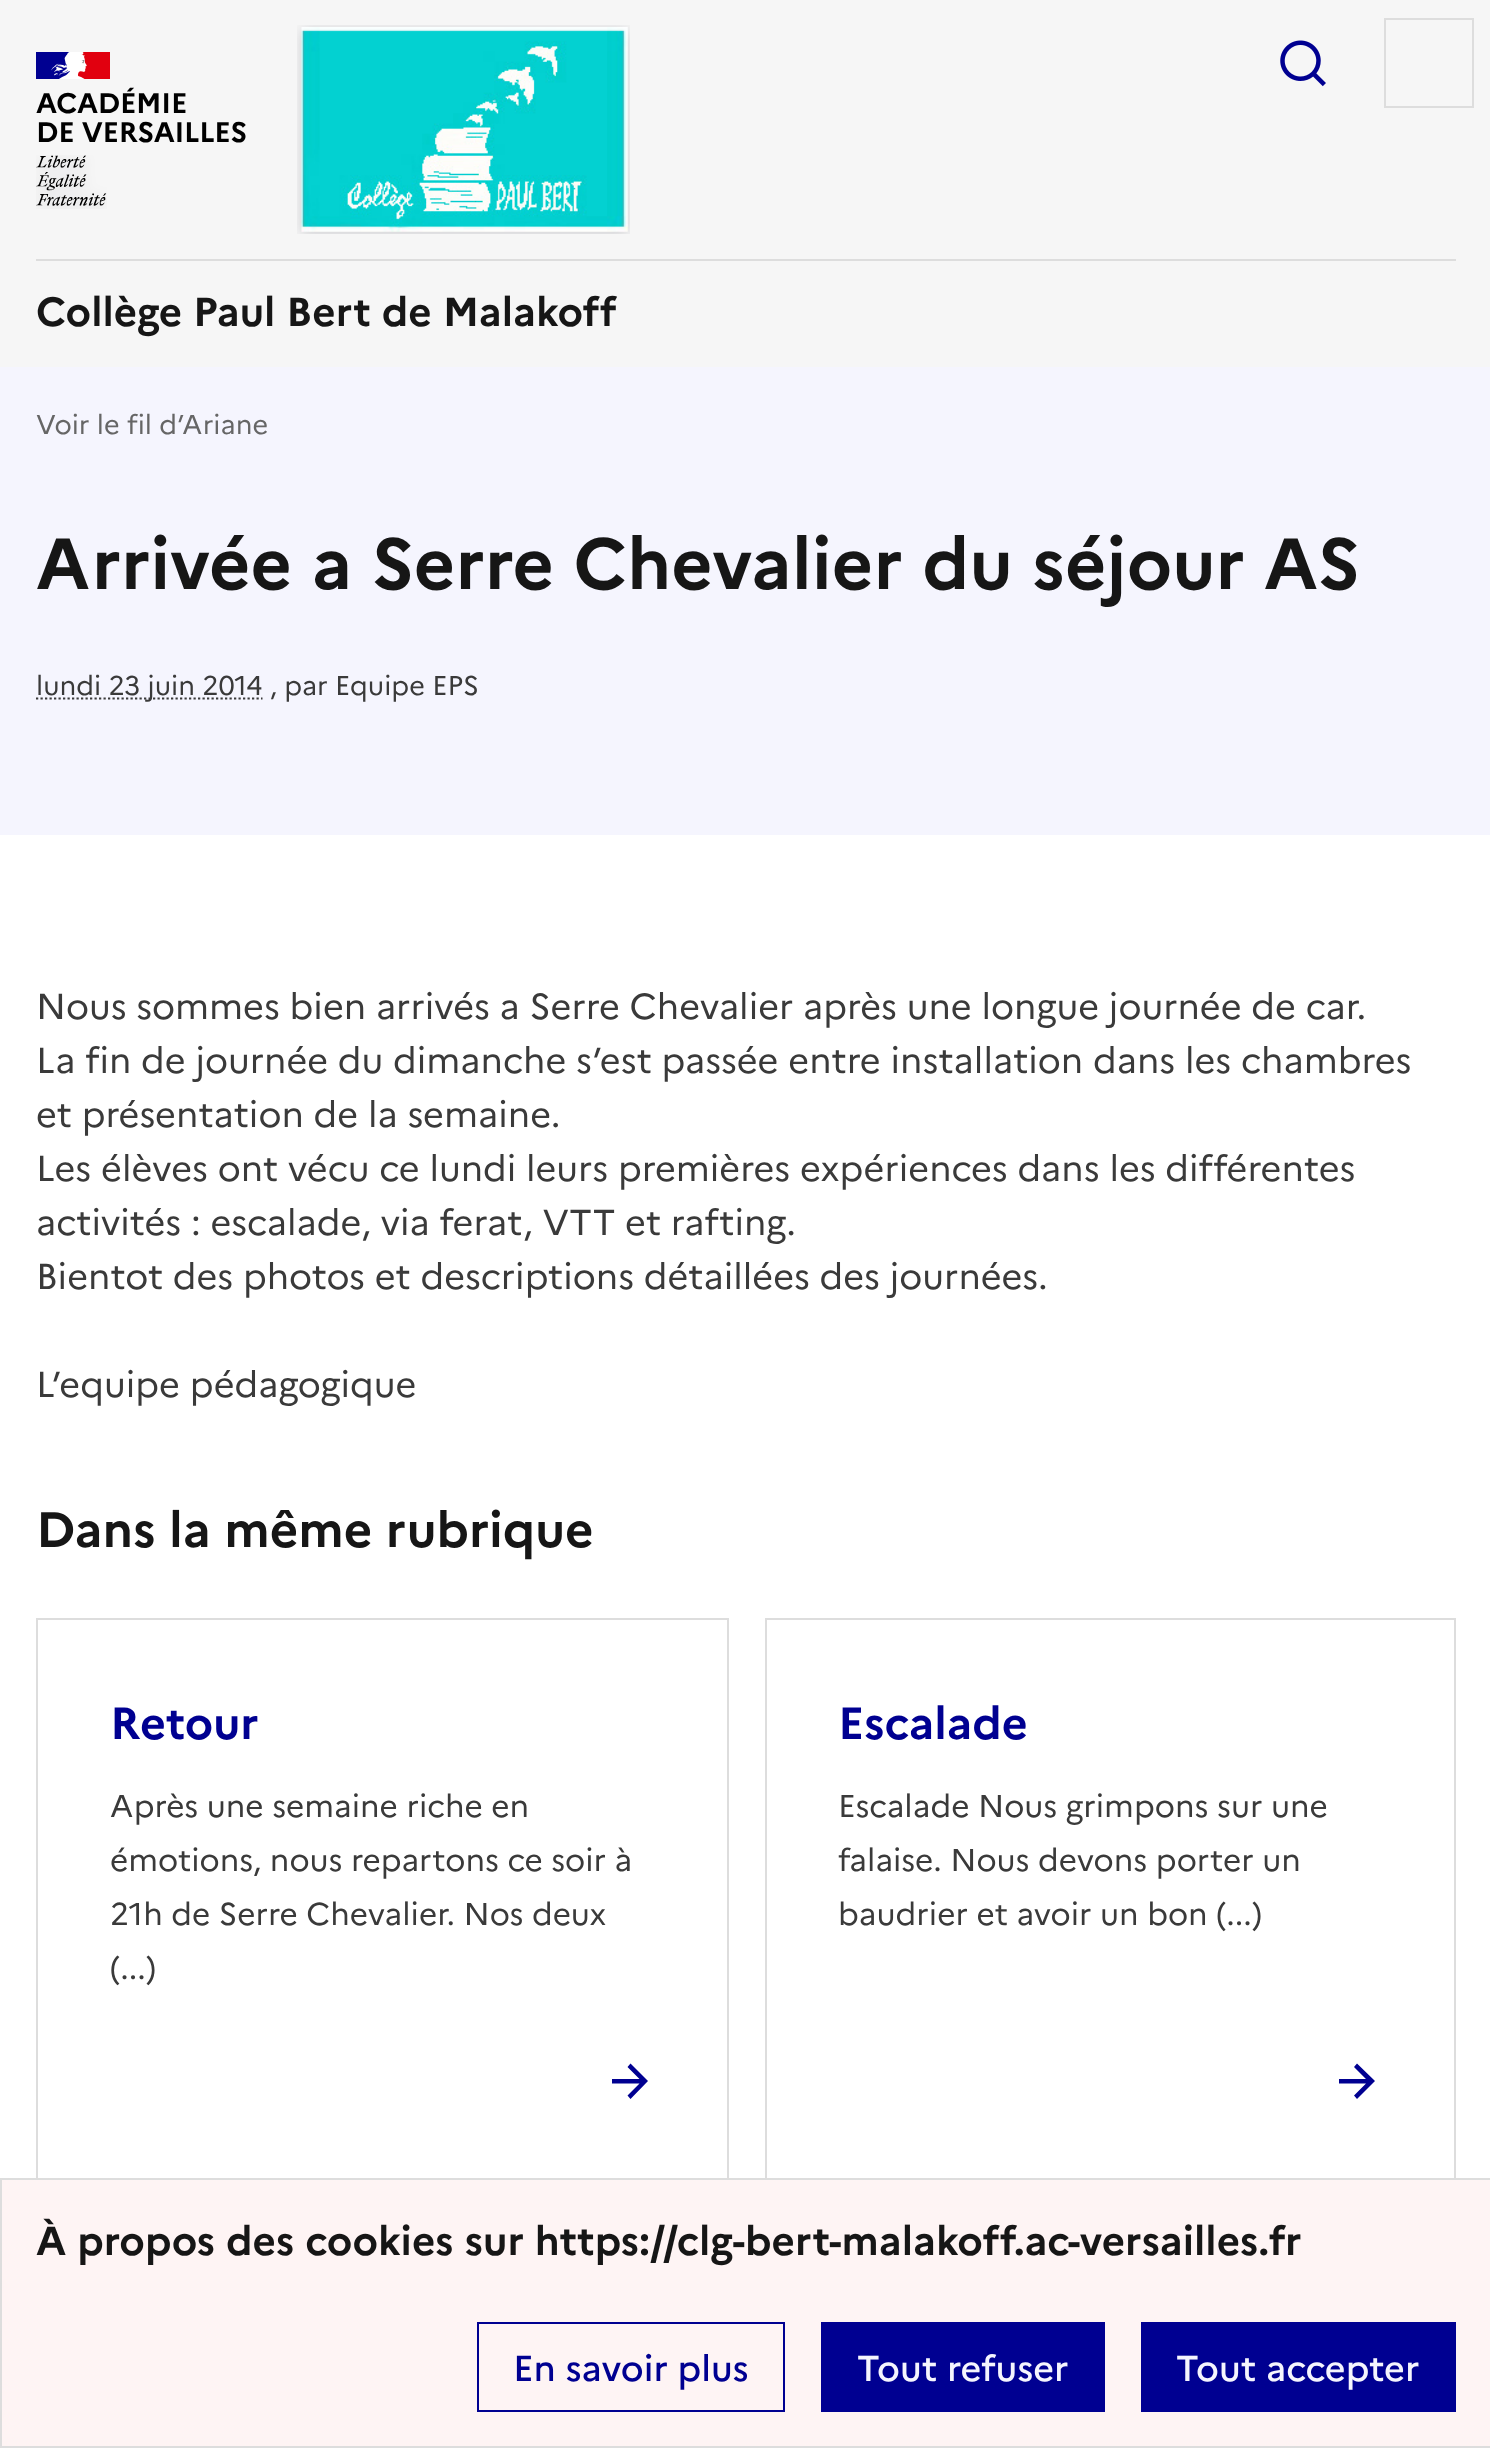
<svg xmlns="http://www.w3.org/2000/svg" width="1490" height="2448">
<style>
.a{font:bold 28.25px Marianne;letter-spacing:-0.25px;fill:#000}
.b{font:bold 40.5px Marianne;fill:#161616}
.c{font:27px Marianne;fill:#666}
.d{font:bold 72px Marianne;fill:#161616}
.e{font:27px Marianne;fill:#3a3a3a}
.f{font:36px Marianne;fill:#3a3a3a}
.g{font:bold 49.5px Marianne;fill:#161616}
.h{font:bold 45px Marianne;fill:#000091}
.i{font:31.5px Marianne;fill:#3a3a3a}
.j{font:500 36px Marianne;fill:#000091}
.k{font:500 36px Marianne;fill:#f5f5fe}
</style>
<rect width="100%" height="100%" fill="#fff"/>
<path fill="#f6f6f6" d="M0 0h1490v367H0z"/>
<path fill="#000091" d="M36 52h34v27H36z"/>
<path fill="#e1000f" d="M77 52h33v27H77z"/>
<image href="1.png" x="51" y="52" width="36" height="27"/>
<image href="2.png" x="36" y="155" width="71" height="54"/>
<image href="3.png" x="297" y="25" width="333" height="209"/>
<image href="4.png" x="1280" y="40" width="46" height="47"/>
<path fill="none" stroke="#ddd" stroke-width="2" d="M1385 19h88v88H1385z"/>
<path fill="#ddd" d="M36 259h1420v2H36z"/>
<path fill="#f5f5fe" d="M0 367h1490v468H0z"/>
<path fill="none" stroke="#3a3a3a" stroke-width="2.2" stroke-dasharray="2.25 2.25" d="M36 698.5h226.5"/>
<path fill="#ddd" d="M36 1618h693v2H36z"/>
<path fill="#ddd" d="M727 1618h2v562H727z"/>
<path fill="#ddd" d="M36 1618h2v562H36z"/>
<path fill="#000091" d="M639.5 2079l-12-12l3-3.5l17.5 17.5l-17.5 18l-3-3.5l12-12h-27.5v-4.5z"/>
<path fill="#ddd" d="M765 1618h691v2H765z"/>
<path fill="#ddd" d="M1454 1618h2v562H1454z"/>
<path fill="#ddd" d="M765 1618h2v562H765z"/>
<path fill="#000091" d="M1366 2079l-12-12l3-3.5l18 17.5l-18 18l-3-3.5l12-12h-27v-4.5z"/>
<path fill="#fef4f4" stroke="#ddd" stroke-width="2" d="M1 2179h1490v268H1z"/>
<path fill="none" stroke="#000091" stroke-width="2" d="M478 2323h306v88H478z"/>
<path fill="#000091" d="M821 2322h284v90H821z"/>
<path fill="#000091" d="M1141 2322h315v90H1141z"/>
<text class="a" x="36" y="113">ACADÉMIE</text>
<text class="a" x="36" y="142">DE VERSAILLES</text>
<text class="b" x="36" y="326">Collège Paul Bert de Malakoff</text>
<text class="c" x="36" y="434">Voir le fil d’Ariane</text>
<text class="d" x="36" y="589">Arrivée a Serre Chevalier du séjour AS</text>
<text class="e" x="36" y="695">lundi 23 juin 2014 , par Equipe EPS</text>
<text class="f" x="36" y="1019">Nous sommes bien arrivés a Serre Chevalier après une longue journée de car.</text>
<text class="f" x="36" y="1073">La fin de journée du dimanche s’est passée entre installation dans les chambres</text>
<text class="f" x="36" y="1127">et présentation de la semaine.</text>
<text class="f" x="36" y="1181">Les élèves ont vécu ce lundi leurs premières expériences dans les différentes</text>
<text class="f" x="36" y="1235">activités : escalade, via ferat, VTT et rafting.</text>
<text class="f" x="36" y="1289">Bientot des photos et descriptions détaillées des journées.</text>
<text class="f" x="36" y="1397">L’equipe pédagogique</text>
<text class="g" x="36" y="1547">Dans la même rubrique</text>
<text class="h" x="110" y="1739">Retour</text>
<text class="i" x="110" y="1817">Après une semaine riche en</text>
<text class="i" x="110" y="1871">émotions, nous repartons ce soir à</text>
<text class="i" x="110" y="1925">21h de Serre Chevalier. Nos deux</text>
<text class="i" x="110" y="1979">(...)</text>
<text class="h" x="838" y="1739">Escalade</text>
<text class="i" x="838" y="1817">Escalade Nous grimpons sur une</text>
<text class="i" x="838" y="1871">falaise. Nous devons porter un</text>
<text class="i" x="838" y="1925">baudrier et avoir un bon (...)</text>
<text class="b" x="36" y="2255">À propos des cookies sur https://clg-bert-malakoff.ac-versailles.fr</text>
<text class="j" x="513" y="2381">En savoir plus</text>
<text class="k" x="857" y="2381">Tout refuser</text>
<text class="k" x="1176" y="2381">Tout accepter</text>
</svg>
